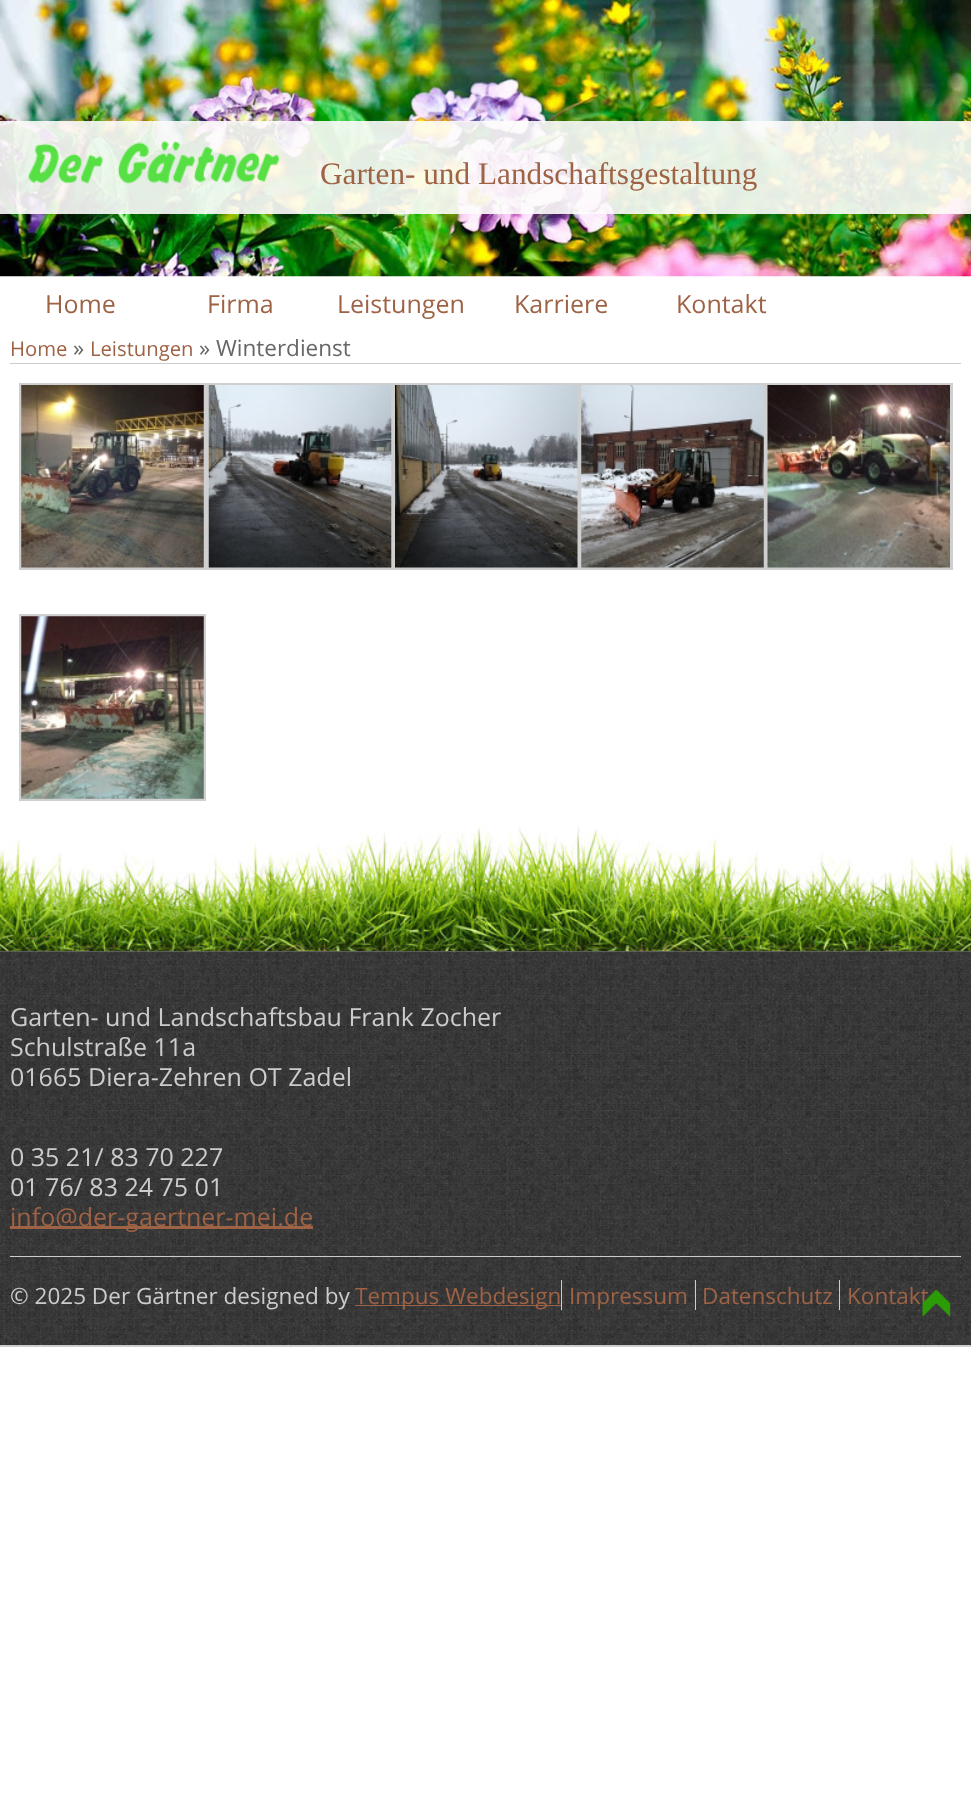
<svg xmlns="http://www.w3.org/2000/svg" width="971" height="1802">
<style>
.a{font:31.25px Liberation Serif;fill:#9e6245}
.b{font:25px Open Sans;fill:#9e6245}
.c{font:20.25px Open Sans;fill:#9e6245}
.d{font:22.5px Open Sans;fill:#666}
.e{font:25px Open Sans;fill:#ccc}
.f{font:22.5px Open Sans;fill:#ccc}
.g{font:22.5px Open Sans;fill:#9e6245}
</style>
<rect width="100%" height="100%" fill="#fff"/>
<image href="1.png" x="0" y="0" width="971" height="277"/>
<path fill="#fdfcfce6" d="M0 121h971v93H0z"/>
<image href="2.png" x="28" y="141" width="251" height="43"/>
<image href="3.png" x="0" y="823" width="971" height="129"/>
<path fill="#ccc" d="M10 363h951v1H10z"/>
<path fill="none" stroke="#cfcfcf" stroke-width="3" d="M20.5 384.5h184v184H20.5z"/>
<image href="4.png" x="21" y="385" width="183" height="183"/>
<path fill="none" stroke="#cfcfcf" stroke-width="3" d="M207.5 384.5h185v184H207.5z"/>
<image href="5.png" x="208" y="385" width="184" height="183"/>
<path fill="none" stroke="#cfcfcf" stroke-width="3" d="M394.5 384.5h184v184H394.5z"/>
<image href="6.png" x="395" y="385" width="183" height="183"/>
<path fill="none" stroke="#cfcfcf" stroke-width="3" d="M580.5 384.5h184v184H580.5z"/>
<image href="7.png" x="581" y="385" width="183" height="183"/>
<path fill="none" stroke="#cfcfcf" stroke-width="3" d="M766.5 384.5h185v184H766.5z"/>
<image href="8.png" x="767" y="385" width="183" height="183"/>
<path fill="none" stroke="#cfcfcf" stroke-width="3" d="M20.5 615.5h184v184H20.5z"/>
<image href="9.png" x="21" y="616" width="183" height="183"/>
<image href="10.png" x="0" y="951" width="971" height="396"/>
<path fill="#ccc" d="M0 1345h971v1H0z"/>
<path fill="#9e6245" d="M10 1226h303v3H10z"/>
<path fill="#ccc" d="M10 1256h951v1H10z"/>
<path fill="#9e6245" d="M355 1305h206v1H355z"/>
<path fill="#ccc" d="M561 1280h1v30H561z"/>
<path fill="#ccc" d="M695 1280h1v30H695z"/>
<path fill="#ccc" d="M839 1280h1v30H839z"/>
<text class="a" x="320" y="184">Garten- und Landschaftsgestaltung</text>
<text class="b" x="45" y="313">Home</text>
<text class="b" x="207" y="313">Firma</text>
<text class="b" x="337" y="313">Leistungen</text>
<text class="b" x="514" y="313">Karriere</text>
<text class="b" x="676" y="313">Kontakt</text>
<text class="c" x="10" y="356">Home</text>
<text class="d" x="73" y="356">»</text>
<text class="c" x="90" y="356">Leistungen</text>
<text class="d" x="199" y="356">» Winterdienst</text>
<text class="e" x="10" y="1026">Garten- und Landschaftsbau Frank Zocher</text>
<text class="e" x="10" y="1056">Schulstraße 11a</text>
<text class="e" x="10" y="1086">01665 Diera-Zehren OT Zadel</text>
<text class="e" x="10" y="1166">0 35 21/ 83 70 227</text>
<text class="e" x="10" y="1196">01 76/ 83 24 75 01</text>
<text class="b" x="10" y="1226">info@der-gaertner-mei.de</text>
<text class="f" x="10" y="1304">© 2025 Der Gärtner designed by</text>
<text class="g" x="355" y="1304">Tempus Webdesign</text>
<text class="g" x="569" y="1304">Impressum</text>
<text class="g" x="702" y="1304">Datenschutz</text>
<text class="g" x="847" y="1304">Kontakt</text>
<image href="11.png" x="922" y="1289" width="29" height="28"/>
</svg>
